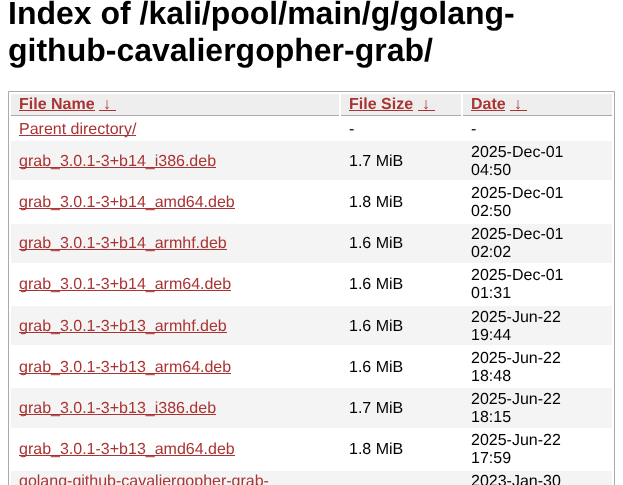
<svg xmlns="http://www.w3.org/2000/svg" width="623" height="485">
<style>
.a{font:bold 32px Liberation Sans;fill:#000}
.b{font:bold 16px Liberation Sans;fill:#a33}
.c{font:16px Liberation Sans;fill:#a33}
.d{font:16px Liberation Sans;fill:#000}
</style>
<rect width="100%" height="100%" fill="#fff"/>
<path fill="none" stroke="#aaa" d="M8.5 91.5h606v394H8.5z"/>
<path fill="#eee" d="M11 94h328v21H11z"/>
<path fill="#aaa" d="M11 115h328v1H11z"/>
<path fill="#a33" d="M19 110h76v1H19z"/>
<path fill="#a33" d="M99 110h17v1H99z"/>
<path fill="#eee" d="M341 94h120v21H341z"/>
<path fill="#aaa" d="M341 115h120v1H341z"/>
<path fill="#a33" d="M349 110h64v1H349z"/>
<path fill="#a33" d="M418 110h17v1H418z"/>
<path fill="#eee" d="M463 94h149v21H463z"/>
<path fill="#aaa" d="M463 115h149v1H463z"/>
<path fill="#a33" d="M471 110h34v1H471z"/>
<path fill="#a33" d="M510 110h17v1H510z"/>
<path fill="#a33" d="M19 135h117v1H19z"/>
<path fill="#f4f4f4" d="M11 141h601v39H11z"/>
<path fill="#a33" d="M19 167h197v1H19z"/>
<path fill="#a33" d="M19 208h216v1H19z"/>
<path fill="#f4f4f4" d="M11 224h601v39H11z"/>
<path fill="#a33" d="M19 249h208v1H19z"/>
<path fill="#a33" d="M19 290h212v1H19z"/>
<path fill="#f4f4f4" d="M11 306h601v39H11z"/>
<path fill="#a33" d="M19 332h208v1H19z"/>
<path fill="#a33" d="M19 373h212v1H19z"/>
<path fill="#f4f4f4" d="M11 388h601v40H11z"/>
<path fill="#a33" d="M19 414h197v1H19z"/>
<path fill="#a33" d="M19 455h216v1H19z"/>
<path fill="#f4f4f4" d="M11 471h601v14H11z"/>
<text class="a" x="8" y="24">Index of /kali/pool/main/g/golang-</text>
<text class="a" x="8" y="61">github-cavaliergopher-grab/</text>
<text class="b" x="19" y="109">File Name</text>
<text class="b" x="103" y="109">↓</text>
<text class="b" x="349" y="109">File Size</text>
<text class="b" x="422" y="109">↓</text>
<text class="b" x="471" y="109">Date</text>
<text class="b" x="514" y="109">↓</text>
<text class="c" x="19" y="134">Parent directory/</text>
<text class="d" x="349" y="134">-</text>
<text class="d" x="471" y="134">-</text>
<text class="c" x="19" y="166">grab_3.0.1-3+b14_i386.deb</text>
<text class="d" x="349" y="166">1.7 MiB</text>
<text class="d" x="471" y="157">2025-Dec-01</text>
<text class="d" x="471" y="175">04:50</text>
<text class="c" x="19" y="207">grab_3.0.1-3+b14_amd64.deb</text>
<text class="d" x="349" y="207">1.8 MiB</text>
<text class="d" x="471" y="198">2025-Dec-01</text>
<text class="d" x="471" y="216">02:50</text>
<text class="c" x="19" y="248">grab_3.0.1-3+b14_armhf.deb</text>
<text class="d" x="349" y="248">1.6 MiB</text>
<text class="d" x="471" y="239">2025-Dec-01</text>
<text class="d" x="471" y="257">02:02</text>
<text class="c" x="19" y="289">grab_3.0.1-3+b14_arm64.deb</text>
<text class="d" x="349" y="289">1.6 MiB</text>
<text class="d" x="471" y="280">2025-Dec-01</text>
<text class="d" x="471" y="298">01:31</text>
<text class="c" x="19" y="331">grab_3.0.1-3+b13_armhf.deb</text>
<text class="d" x="349" y="331">1.6 MiB</text>
<text class="d" x="471" y="322">2025-Jun-22</text>
<text class="d" x="471" y="340">19:44</text>
<text class="c" x="19" y="372">grab_3.0.1-3+b13_arm64.deb</text>
<text class="d" x="349" y="372">1.6 MiB</text>
<text class="d" x="471" y="363">2025-Jun-22</text>
<text class="d" x="471" y="381">18:48</text>
<text class="c" x="19" y="413">grab_3.0.1-3+b13_i386.deb</text>
<text class="d" x="349" y="413">1.7 MiB</text>
<text class="d" x="471" y="404">2025-Jun-22</text>
<text class="d" x="471" y="422">18:15</text>
<text class="c" x="19" y="454">grab_3.0.1-3+b13_amd64.deb</text>
<text class="d" x="349" y="454">1.8 MiB</text>
<text class="d" x="471" y="445">2025-Jun-22</text>
<text class="d" x="471" y="463">17:59</text>
<text class="c" x="19" y="486">golang-github-cavaliergopher-grab-</text>
<text class="d" x="471" y="486">2023-Jan-30</text>
</svg>
